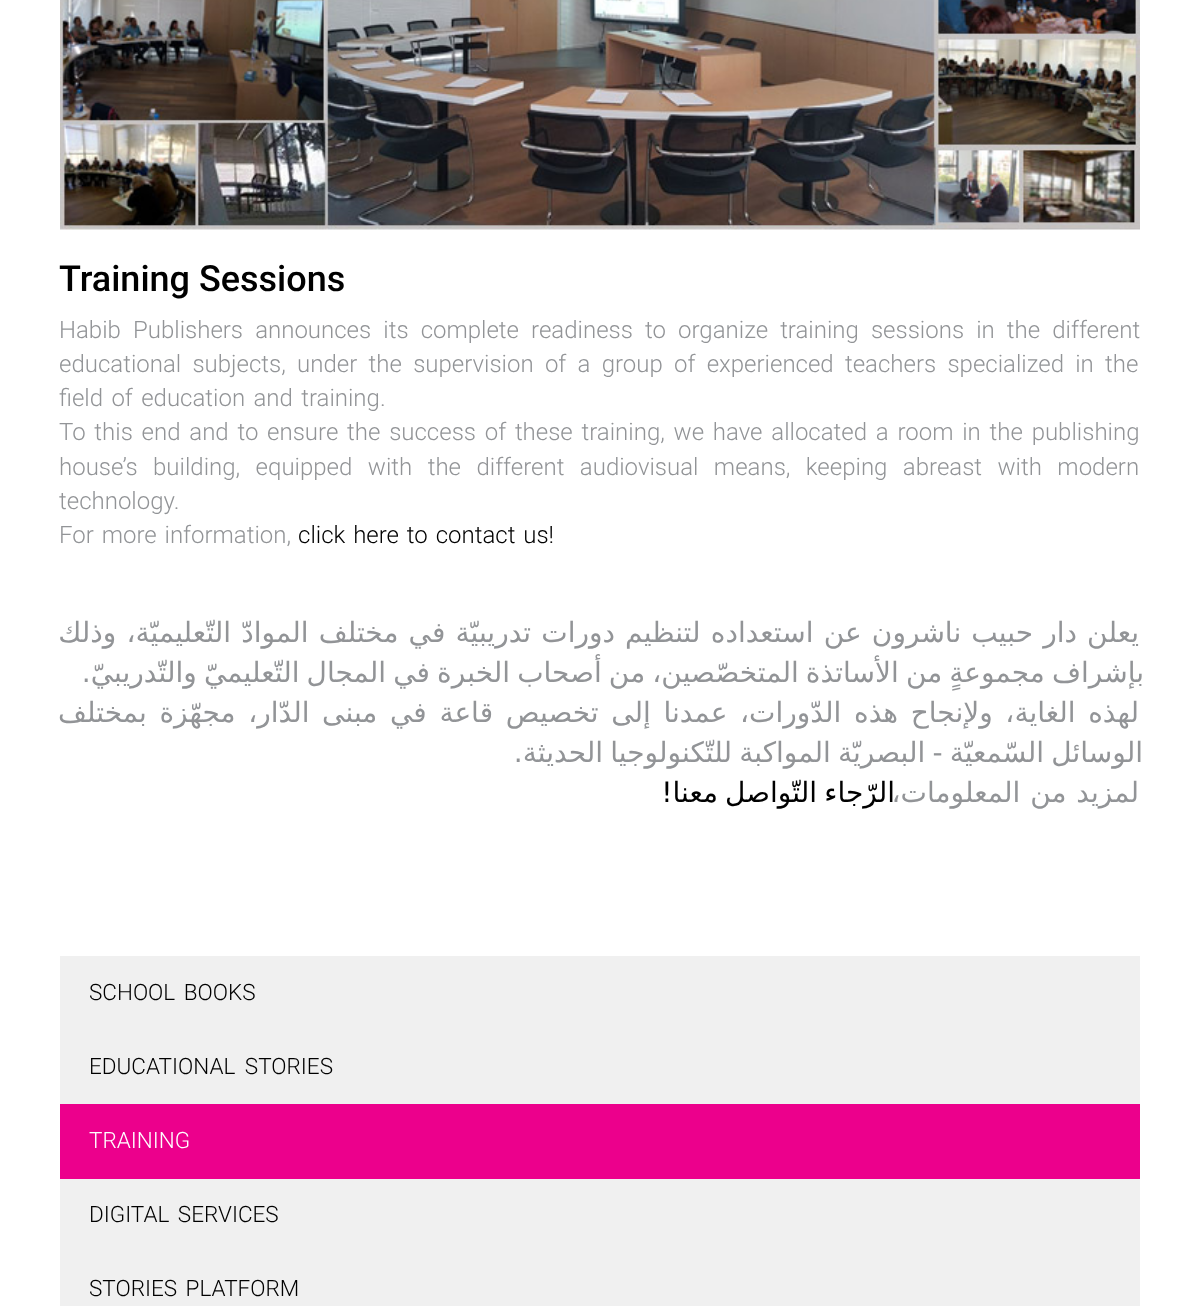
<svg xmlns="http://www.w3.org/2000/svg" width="1198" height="1306">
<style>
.a{font:500 36px Roboto;fill:#000}
.b{font:300 24px Roboto;fill:#929497}
.c{font:300 24px Roboto;fill:#000}
.d{font:28px DejaVu Sans;direction:rtl;fill:#929497}
.e{font:28px DejaVu Sans;direction:rtl;fill:#000}
.f{font:300 22.5px Roboto;fill:#000}
.g{font:300 22.5px Roboto;fill:#fff}
</style>
<rect width="100%" height="100%" fill="#fff"/>
<image href="1.png" x="60" y="0" width="1080" height="230"/>
<path fill="#f0f0f0" d="M60 956h1080v148H60z"/>
<path fill="#ec008c" d="M60 1104h1080v75H60z"/>
<path fill="#f0f0f0" d="M60 1179h1080v127H60z"/>
<text class="a" x="59" y="291">Training Sessions</text>
<text class="b" x="59" y="338" word-spacing="6.25">Habib Publishers announces its complete readiness to organize training sessions in the different</text>
<text class="b" x="59" y="372" word-spacing="5.4">educational subjects, under the supervision of a group of experienced teachers specialized in the</text>
<text class="b" x="59" y="406" word-spacing="2.5">field of education and training.</text>
<text class="b" x="59" y="440" word-spacing="2.9">To this end and to ensure the success of these training, we have allocated a room in the publishing</text>
<text class="b" x="59" y="475" word-spacing="9.6">house’s building, equipped with the different audiovisual means, keeping abreast with modern</text>
<text class="b" x="59" y="509">technology.</text>
<text class="b" x="59" y="543" word-spacing="2">For more information,</text>
<text class="c" x="298" y="543" word-spacing="2">click here to contact us!</text>
<text class="d" x="1139" y="642" word-spacing="1.25">يعلن دار حبيب ناشرون عن استعداده لتنظيم دورات تدريبيّة في مختلف الموادّ التّعليميّة، وذلك</text>
<text class="d" x="1144" y="682" word-spacing="-1.75">بإشراف مجموعةٍ من الأساتذة المتخصّصين، من أصحاب الخبرة في المجال التّعليميّ والتّدريبيّ.</text>
<text class="d" x="1139" y="722" word-spacing="3.75">لهذه الغاية، ولإنجاح هذه الدّورات، عمدنا إلى تخصيص قاعة في مبنى الدّار، مجهّزة بمختلف</text>
<text class="d" x="1143" y="762" word-spacing="-1.75">الوسائل السّمعيّة - البصريّة المواكبة للتّكنولوجيا الحديثة.</text>
<text class="d" x="1139" y="802" word-spacing="1">لمزيد من المعلومات،</text>
<text class="e" x="895" y="802" word-spacing="-1.75">الرّجاء التّواصل معنا!</text>
<text class="f" x="89" y="1000" word-spacing="3">SCHOOL BOOKS</text>
<text class="f" x="89" y="1074" word-spacing="4">EDUCATIONAL STORIES</text>
<text class="g" x="89" y="1148">TRAINING</text>
<text class="f" x="89" y="1222" word-spacing="3">DIGITAL SERVICES</text>
<text class="f" x="89" y="1296" word-spacing="3">STORIES PLATFORM</text>
</svg>
